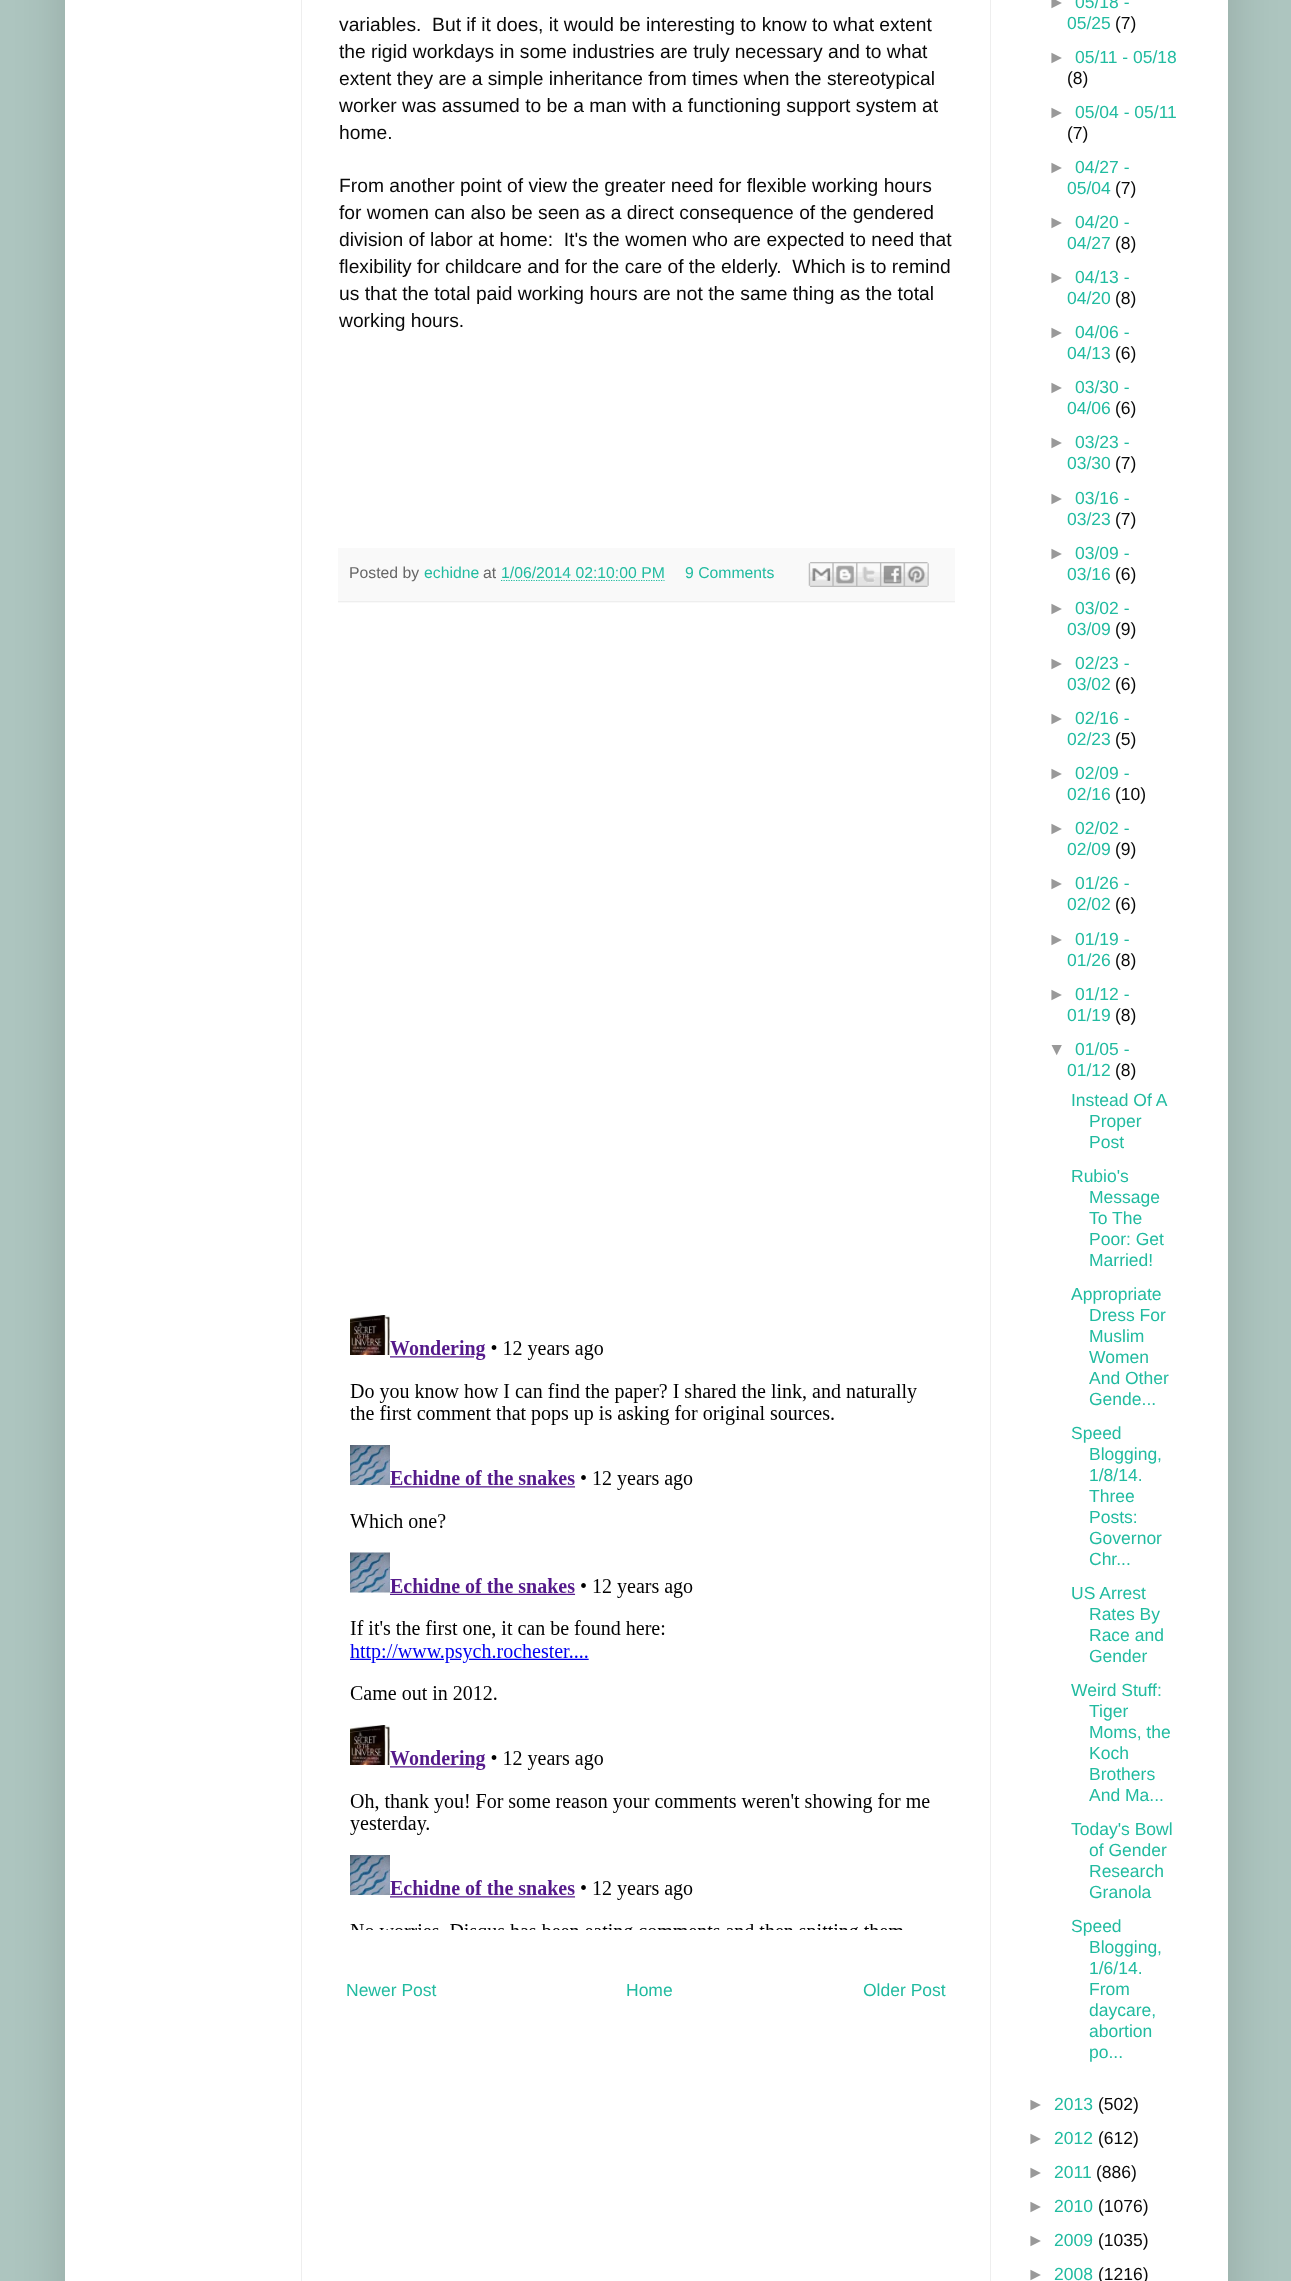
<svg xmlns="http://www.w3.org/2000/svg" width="1291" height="2281">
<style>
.a{font:19.25px Liberation Sans;fill:#080808}
.b{font:15.75px Liberation Sans;fill:#666}
.c{font:15.75px Liberation Sans;fill:#21bba0}
.d{font:17.5px Liberation Sans;fill:#21bba0}
.e{font:17.5px Liberation Sans;fill:#999}
.f{font:17.5px Liberation Sans;fill:#080808}
</style>
<rect width="100%" height="100%" fill="#adc5bf"/>
<path fill="#00000026" filter="blur(25px)" d="M65 -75h1163v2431H65z"/>
<path fill="#fff" d="M65 0h1163v2281H65z"/>
<path fill="#eee" d="M301 0h1v2281H301z"/>
<path fill="#f9f9f9" d="M338 548h617v55H338z"/>
<path fill="#eee" d="M338 601h617v1H338z"/>
<path fill="none" stroke="#21bba0" stroke-width="1.2" stroke-dasharray="1.25 1.25" d="M501 580.5h163.5"/>
<image href="1.png" x="808" y="562" width="25" height="25"/>
<image href="2.png" x="832" y="562" width="25" height="25"/>
<image href="3.png" x="856" y="562" width="24" height="25"/>
<image href="4.png" x="880" y="562" width="24" height="25"/>
<image href="5.png" x="903" y="562" width="26" height="25"/>
<image href="6.png" x="350" y="1315" width="580" height="615"/>
<path fill="#eee" d="M990 0h1v2281H990z"/>
<text class="a" xml:space="preserve" x="339" y="31">variables.  But if it does, it would be interesting to know to what extent</text>
<text class="a" x="339" y="58">the rigid workdays in some industries are truly necessary and to what</text>
<text class="a" x="339" y="85">extent they are a simple inheritance from times when the stereotypical</text>
<text class="a" x="339" y="112">worker was assumed to be a man with a functioning support system at</text>
<text class="a" x="339" y="139">home.</text>
<text class="a" x="339" y="192">From another point of view the greater need for flexible working hours</text>
<text class="a" x="339" y="219">for women can also be seen as a direct consequence of the gendered</text>
<text class="a" xml:space="preserve" x="339" y="246">division of labor at home:  It's the women who are expected to need that</text>
<text class="a" xml:space="preserve" x="339" y="273">flexibility for childcare and for the care of the elderly.  Which is to remind</text>
<text class="a" x="339" y="300">us that the total paid working hours are not the same thing as the total</text>
<text class="a" x="339" y="327">working hours.</text>
<text class="b" x="349" y="578">Posted by</text>
<text class="c" x="424" y="578">echidne</text>
<text class="b" x="483" y="578">at</text>
<text class="c" x="501" y="578">1/06/2014 02:10:00 PM</text>
<text class="c" x="685" y="578">9 Comments</text>
<text class="d" x="346" y="1996">Newer Post</text>
<text class="d" x="626" y="1996">Home</text>
<text class="d" x="863" y="1996">Older Post</text>
<text class="e" x="1048" y="8">►</text>
<text class="d" x="1075" y="8">05/18 -</text>
<text class="d" x="1067" y="29">05/25</text>
<text class="f" x="1115" y="29">(7)</text>
<text class="e" x="1048" y="63">►</text>
<text class="d" x="1075" y="63">05/11 - 05/18</text>
<text class="f" x="1067" y="84">(8)</text>
<text class="e" x="1048" y="118">►</text>
<text class="d" x="1075" y="118">05/04 - 05/11</text>
<text class="f" x="1067" y="139">(7)</text>
<text class="e" x="1048" y="173">►</text>
<text class="d" x="1075" y="173">04/27 -</text>
<text class="d" x="1067" y="194">05/04</text>
<text class="f" x="1115" y="194">(7)</text>
<text class="e" x="1048" y="228">►</text>
<text class="d" x="1075" y="228">04/20 -</text>
<text class="d" x="1067" y="249">04/27</text>
<text class="f" x="1115" y="249">(8)</text>
<text class="e" x="1048" y="283">►</text>
<text class="d" x="1075" y="283">04/13 -</text>
<text class="d" x="1067" y="304">04/20</text>
<text class="f" x="1115" y="304">(8)</text>
<text class="e" x="1048" y="338">►</text>
<text class="d" x="1075" y="338">04/06 -</text>
<text class="d" x="1067" y="359">04/13</text>
<text class="f" x="1115" y="359">(6)</text>
<text class="e" x="1048" y="393">►</text>
<text class="d" x="1075" y="393">03/30 -</text>
<text class="d" x="1067" y="414">04/06</text>
<text class="f" x="1115" y="414">(6)</text>
<text class="e" x="1048" y="448">►</text>
<text class="d" x="1075" y="448">03/23 -</text>
<text class="d" x="1067" y="469">03/30</text>
<text class="f" x="1115" y="469">(7)</text>
<text class="e" x="1048" y="504">►</text>
<text class="d" x="1075" y="504">03/16 -</text>
<text class="d" x="1067" y="525">03/23</text>
<text class="f" x="1115" y="525">(7)</text>
<text class="e" x="1048" y="559">►</text>
<text class="d" x="1075" y="559">03/09 -</text>
<text class="d" x="1067" y="580">03/16</text>
<text class="f" x="1115" y="580">(6)</text>
<text class="e" x="1048" y="614">►</text>
<text class="d" x="1075" y="614">03/02 -</text>
<text class="d" x="1067" y="635">03/09</text>
<text class="f" x="1115" y="635">(9)</text>
<text class="e" x="1048" y="669">►</text>
<text class="d" x="1075" y="669">02/23 -</text>
<text class="d" x="1067" y="690">03/02</text>
<text class="f" x="1115" y="690">(6)</text>
<text class="e" x="1048" y="724">►</text>
<text class="d" x="1075" y="724">02/16 -</text>
<text class="d" x="1067" y="745">02/23</text>
<text class="f" x="1115" y="745">(5)</text>
<text class="e" x="1048" y="779">►</text>
<text class="d" x="1075" y="779">02/09 -</text>
<text class="d" x="1067" y="800">02/16</text>
<text class="f" x="1115" y="800">(10)</text>
<text class="e" x="1048" y="834">►</text>
<text class="d" x="1075" y="834">02/02 -</text>
<text class="d" x="1067" y="855">02/09</text>
<text class="f" x="1115" y="855">(9)</text>
<text class="e" x="1048" y="889">►</text>
<text class="d" x="1075" y="889">01/26 -</text>
<text class="d" x="1067" y="910">02/02</text>
<text class="f" x="1115" y="910">(6)</text>
<text class="e" x="1048" y="945">►</text>
<text class="d" x="1075" y="945">01/19 -</text>
<text class="d" x="1067" y="966">01/26</text>
<text class="f" x="1115" y="966">(8)</text>
<text class="e" x="1048" y="1000">►</text>
<text class="d" x="1075" y="1000">01/12 -</text>
<text class="d" x="1067" y="1021">01/19</text>
<text class="f" x="1115" y="1021">(8)</text>
<text class="e" x="1048" y="1055">▼</text>
<text class="d" x="1075" y="1055">01/05 -</text>
<text class="d" x="1067" y="1076">01/12</text>
<text class="f" x="1115" y="1076">(8)</text>
<text class="d" x="1071" y="1106">Instead Of A</text>
<text class="d" x="1089" y="1127">Proper</text>
<text class="d" x="1089" y="1148">Post</text>
<text class="d" x="1071" y="1182">Rubio's</text>
<text class="d" x="1089" y="1203">Message</text>
<text class="d" x="1089" y="1224">To The</text>
<text class="d" x="1089" y="1245">Poor: Get</text>
<text class="d" x="1089" y="1266">Married!</text>
<text class="d" x="1071" y="1300">Appropriate</text>
<text class="d" x="1089" y="1321">Dress For</text>
<text class="d" x="1089" y="1342">Muslim</text>
<text class="d" x="1089" y="1363">Women</text>
<text class="d" x="1089" y="1384">And Other</text>
<text class="d" x="1089" y="1405">Gende...</text>
<text class="d" x="1071" y="1439">Speed</text>
<text class="d" x="1089" y="1460">Blogging,</text>
<text class="d" x="1089" y="1481">1/8/14.</text>
<text class="d" x="1089" y="1502">Three</text>
<text class="d" x="1089" y="1523">Posts:</text>
<text class="d" x="1089" y="1544">Governor</text>
<text class="d" x="1089" y="1565">Chr...</text>
<text class="d" x="1071" y="1599">US Arrest</text>
<text class="d" x="1089" y="1620">Rates By</text>
<text class="d" x="1089" y="1641">Race and</text>
<text class="d" x="1089" y="1662">Gender</text>
<text class="d" x="1071" y="1696">Weird Stuff:</text>
<text class="d" x="1089" y="1717">Tiger</text>
<text class="d" x="1089" y="1738">Moms, the</text>
<text class="d" x="1089" y="1759">Koch</text>
<text class="d" x="1089" y="1780">Brothers</text>
<text class="d" x="1089" y="1801">And Ma...</text>
<text class="d" x="1071" y="1835">Today's Bowl</text>
<text class="d" x="1089" y="1856">of Gender</text>
<text class="d" x="1089" y="1877">Research</text>
<text class="d" x="1089" y="1898">Granola</text>
<text class="d" x="1071" y="1932">Speed</text>
<text class="d" x="1089" y="1953">Blogging,</text>
<text class="d" x="1089" y="1974">1/6/14.</text>
<text class="d" x="1089" y="1995">From</text>
<text class="d" x="1089" y="2016">daycare,</text>
<text class="d" x="1089" y="2037">abortion</text>
<text class="d" x="1089" y="2058">po...</text>
<text class="e" x="1027" y="2110">►</text>
<text class="d" x="1054" y="2110">2013</text>
<text class="f" x="1098" y="2110">(502)</text>
<text class="e" x="1027" y="2144">►</text>
<text class="d" x="1054" y="2144">2012</text>
<text class="f" x="1098" y="2144">(612)</text>
<text class="e" x="1027" y="2178">►</text>
<text class="d" x="1054" y="2178">2011</text>
<text class="f" x="1096" y="2178">(886)</text>
<text class="e" x="1027" y="2212">►</text>
<text class="d" x="1054" y="2212">2010</text>
<text class="f" x="1098" y="2212">(1076)</text>
<text class="e" x="1027" y="2246">►</text>
<text class="d" x="1054" y="2246">2009</text>
<text class="f" x="1098" y="2246">(1035)</text>
<text class="e" x="1027" y="2280">►</text>
<text class="d" x="1054" y="2280">2008</text>
<text class="f" x="1098" y="2280">(1216)</text>
</svg>
